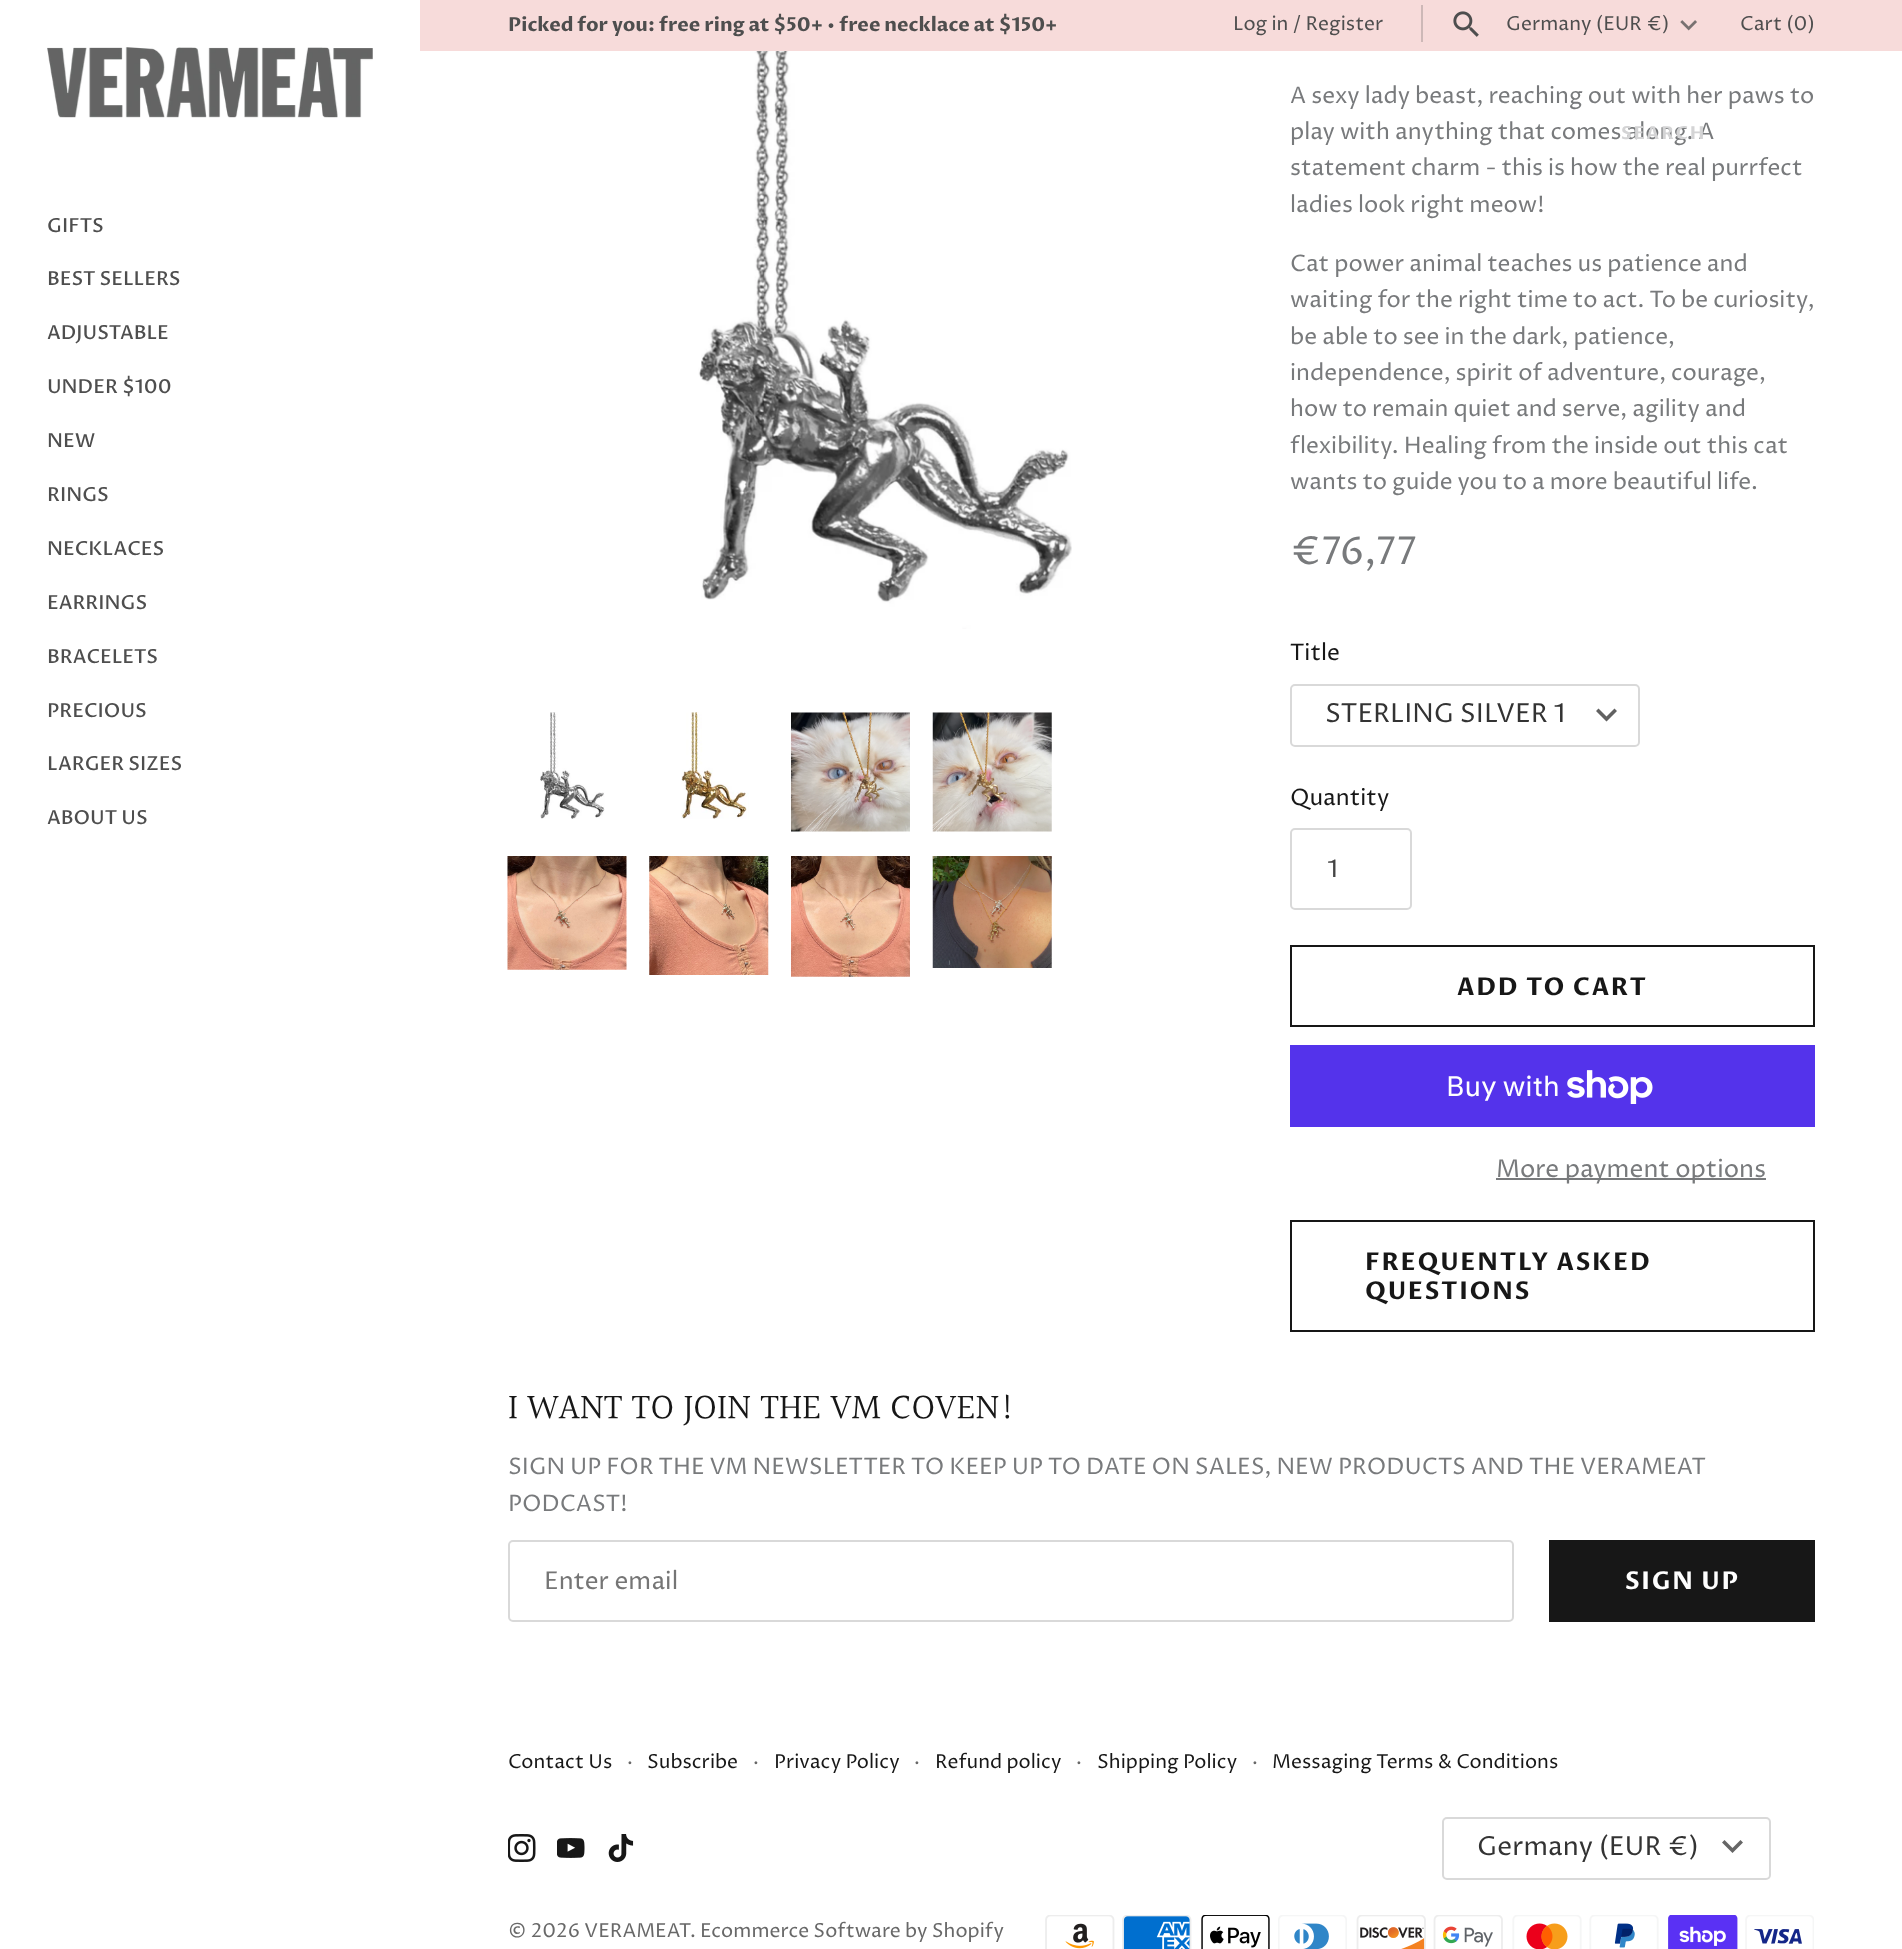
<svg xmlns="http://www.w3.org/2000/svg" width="1902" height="1949">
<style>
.a{font:bold 19.35px Proza Libre;fill:#4e4e4e}
.b{font:19.35px Proza Libre;fill:#4e4e4e}
.c{font:500 19.35px Proza Libre;fill:#4e4e4e}
.d{font:22.75px Proza Libre;fill:#787a7c}
.e{font:bold 18px Proza Libre;letter-spacing:1.75px;fill:#d4d4d5}
.f{font:38.5px Proza Libre;fill:#787a7c}
.g{font:22.75px Proza Libre;fill:#171717}
.h{font:26.25px Proza Libre;fill:#333}
.i{font:24.5px Proza Libre;fill:#444}
.j{font:bold 24.5px Proza Libre;letter-spacing:1.75px;fill:#171717}
.k{font:28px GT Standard;fill:#fff}
.l{font:24.5px Proza Libre;fill:#787a7c}
.m{font:36.4px Halant;fill:#171717}
.n{font:24.5px Proza Libre;fill:#757575}
.o{font:bold 24.5px Proza Libre;letter-spacing:1.75px;fill:#fff}
.p{font:19.35px Proza Libre;fill:#171717}
.q{font:19.35px Proza Libre;fill:#686868}
</style>
<rect width="100%" height="100%" fill="#fff"/>
<path fill="#f7dbda" d="M420 0h1482v51H420z"/>
<path fill="#cdb8b7" d="M1421 5h2v37H1421z"/>
<image href="1.png" x="1453" y="11" width="26" height="26"/>
<image href="2.png" x="1680" y="20" width="17" height="11"/>
<image href="3.png" x="47" y="47" width="326" height="71"/>
<image href="4.png" x="698" y="51" width="374" height="578"/>
<image href="5.png" x="540" y="712" width="65" height="107"/>
<image href="6.png" x="681" y="712" width="68" height="107"/>
<image href="7.png" x="791" y="712" width="119" height="120"/>
<image href="8.png" x="932" y="712" width="120" height="120"/>
<image href="9.png" x="507" y="856" width="120" height="114"/>
<image href="10.png" x="649" y="856" width="120" height="119"/>
<image href="11.png" x="791" y="856" width="119" height="121"/>
<image href="12.png" x="932" y="856" width="120" height="112"/>
<path fill="#616161" d="M1598.5 708.5l8 8l8-8l2.5 2.5l-10.5 10.5l-10.5-10.5z"/>
<rect fill="none" stroke="#d9d9d9" stroke-width="2" x="1291" y="685" width="348" height="61" rx="4"/>
<rect fill="none" stroke="#d9d9d9" stroke-width="2" x="1291" y="829" width="120" height="80" rx="4"/>
<path fill="none" stroke="#171717" stroke-width="2" d="M1291 946h523v80H1291z"/>
<path fill="#5433eb" d="M1290 1045h525v82H1290z"/>
<image href="13.png" x="1567" y="1070" width="86" height="34"/>
<path fill="#787a7c" d="M1496 1178h270v2H1496z"/>
<path fill="none" stroke="#171717" stroke-width="2" d="M1291 1221h523v110H1291z"/>
<rect fill="none" stroke="#d9d9d9" stroke-width="2" x="509" y="1541" width="1004" height="80" rx="4"/>
<path fill="#171717" d="M1549 1540h266v82H1549z"/>
<image href="14.png" x="508" y="1834" width="28" height="28"/>
<image href="15.png" x="557" y="1838" width="28" height="20"/>
<image href="16.png" x="608" y="1834" width="26" height="28"/>
<rect fill="none" stroke="#d9d9d9" stroke-width="2" x="1443" y="1818" width="327" height="61" rx="4"/>
<path fill="#666" d="M1724.5 1840l8 8l8-8l2.5 2.5l-10.5 10.5l-10.5-10.5z"/>
<image href="17.png" x="1045" y="1915" width="70" height="34"/>
<image href="18.png" x="1122" y="1915" width="70" height="34"/>
<image href="19.png" x="1201" y="1915" width="69" height="34"/>
<image href="20.png" x="1278" y="1915" width="69" height="34"/>
<image href="21.png" x="1356" y="1915" width="70" height="34"/>
<image href="22.png" x="1433" y="1915" width="70" height="34"/>
<image href="23.png" x="1512" y="1915" width="70" height="34"/>
<image href="24.png" x="1589" y="1915" width="70" height="34"/>
<image href="25.png" x="1668" y="1915" width="70" height="34"/>
<image href="26.png" x="1745" y="1915" width="69" height="34"/>
<text class="a" x="508" y="31">Picked for you: free ring at $50+ • free necklace at $150+</text>
<text class="b" x="1233" y="30">Log in / Register</text>
<text class="b" x="1506" y="30">Germany (EUR €)</text>
<text class="b" x="1740" y="30">Cart (0)</text>
<text class="c" x="47" y="232">GIFTS</text>
<text class="c" x="47" y="285">BEST SELLERS</text>
<text class="c" x="47" y="339">ADJUSTABLE</text>
<text class="c" x="47" y="393">UNDER $100</text>
<text class="c" x="47" y="447">NEW</text>
<text class="c" x="47" y="501">RINGS</text>
<text class="c" x="47" y="555">NECKLACES</text>
<text class="c" x="47" y="609">EARRINGS</text>
<text class="c" x="47" y="663">BRACELETS</text>
<text class="c" x="47" y="717">PRECIOUS</text>
<text class="c" x="47" y="770">LARGER SIZES</text>
<text class="c" x="47" y="824">ABOUT US</text>
<text class="d" x="1290" y="103">A sexy lady beast, reaching out with her paws to</text>
<text class="d" x="1290" y="139">play with anything that comes along. A</text>
<text class="e" x="1621" y="139">SEARCH</text>
<text class="d" x="1290" y="175">statement charm - this is how the real purrfect</text>
<text class="d" x="1290" y="212">ladies look right meow!</text>
<text class="d" x="1290" y="271">Cat power animal teaches us patience and</text>
<text class="d" x="1290" y="307">waiting for the right time to act. To be curiosity,</text>
<text class="d" x="1290" y="344">be able to see in the dark, patience,</text>
<text class="d" x="1290" y="380">independence, spirit of adventure, courage,</text>
<text class="d" x="1290" y="416">how to remain quiet and serve, agility and</text>
<text class="d" x="1290" y="453">flexibility. Healing from the inside out this cat</text>
<text class="d" x="1290" y="489">wants to guide you to a more beautiful life.</text>
<text class="f" x="1290" y="564">€76,77</text>
<text class="g" x="1290" y="660">Title</text>
<text class="h" x="1325" y="722">STERLING SILVER 1</text>
<text class="g" x="1290" y="805">Quantity</text>
<text class="i" x="1327" y="877">1</text>
<text class="j" x="1457" y="995">ADD TO CART</text>
<text class="k" x="1446" y="1096">Buy with</text>
<text class="l" x="1496" y="1177">More payment options</text>
<text class="j" x="1365" y="1270">FREQUENTLY ASKED</text>
<text class="j" x="1365" y="1299">QUESTIONS</text>
<text class="m" x="508" y="1420">I WANT TO JOIN THE VM COVEN!</text>
<text class="d" x="508" y="1474">SIGN UP FOR THE VM NEWSLETTER TO KEEP UP TO DATE ON SALES, NEW PRODUCTS AND THE VERAMEAT</text>
<text class="d" x="508" y="1511">PODCAST!</text>
<text class="n" x="544" y="1589">Enter email</text>
<text class="o" x="1625" y="1589">SIGN UP</text>
<text class="p" x="508" y="1768">Contact Us</text>
<text class="q" x="627" y="1768">·</text>
<text class="p" x="647" y="1768">Subscribe</text>
<text class="q" x="753" y="1768">·</text>
<text class="p" x="774" y="1768">Privacy Policy</text>
<text class="q" x="914" y="1768">·</text>
<text class="p" x="935" y="1768">Refund policy</text>
<text class="q" x="1076" y="1768">·</text>
<text class="p" x="1097" y="1768">Shipping Policy</text>
<text class="q" x="1252" y="1768">·</text>
<text class="p" x="1272" y="1768">Messaging Terms &amp; Conditions</text>
<text class="h" x="1477" y="1855">Germany (EUR €)</text>
<text class="q" x="508" y="1937">© 2026 VERAMEAT</text>
<text class="q" x="690" y="1937">.</text>
<text class="q" x="700" y="1937">Ecommerce Software by Shopify</text>
</svg>
